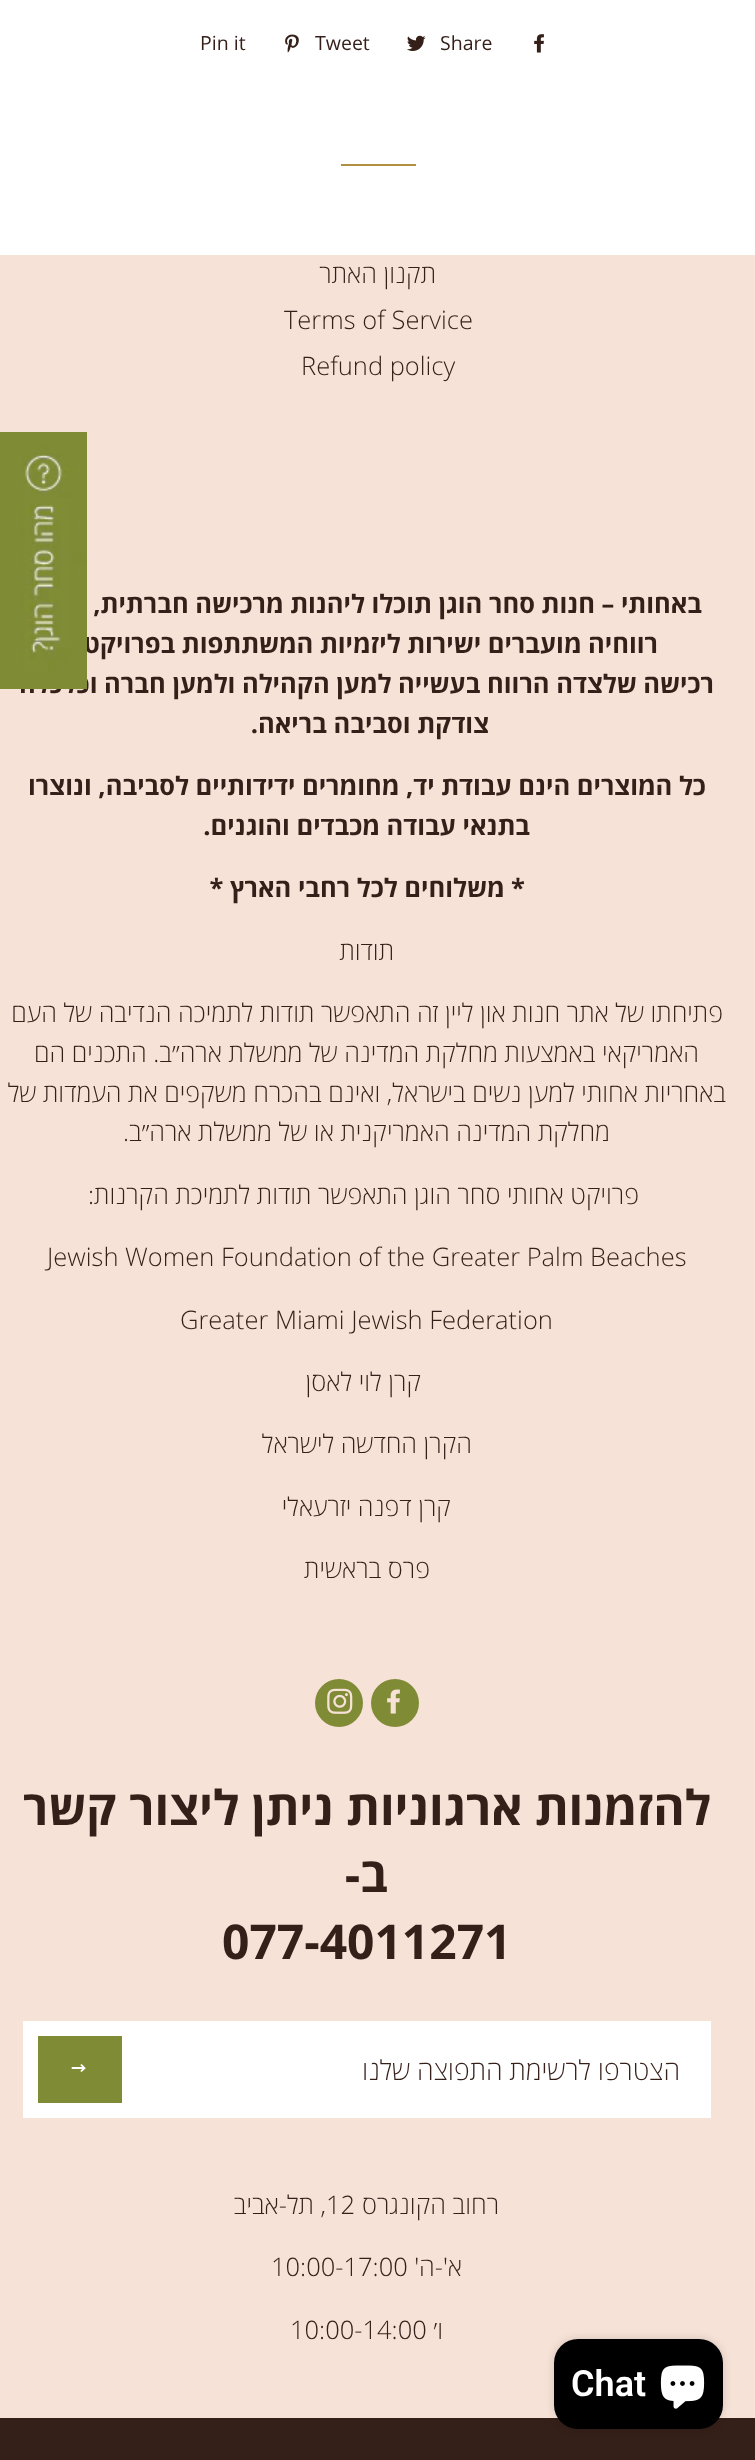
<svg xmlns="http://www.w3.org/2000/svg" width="755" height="2460">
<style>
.a{font:19.5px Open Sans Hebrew;fill:#351f19}
.b{font:300 25.5px Open Sans Hebrew;direction:rtl;fill:#351f19}
.c{font:300 25.5px Open Sans Hebrew;fill:#351f19}
.d{font:bold 25.5px Open Sans Hebrew;direction:rtl;fill:#351f19}
.e{font:bold 48px Open Sans Hebrew;direction:rtl;fill:#351f19}
.f{font:bold 48px Open Sans Hebrew;fill:#351f19}
.g{font:300 27px Open Sans Hebrew;direction:rtl;fill:#351f19}
.h{font:600 36px Roboto;fill:#fff}
</style>
<rect width="100%" height="100%" fill="#fff"/>
<image href="1.png" x="534" y="34" width="10" height="19"/>
<image href="2.png" x="407" y="35" width="19" height="16"/>
<image href="3.png" x="285" y="34" width="14" height="19"/>
<path fill="#b19041" d="M341 164h75v2H341z"/>
<path fill="#f7e2d7" d="M0 255h755v2163H0z"/>
<circle fill="#808b36" cx="395" cy="1703" r="24"/>
<image href="4.png" x="387" y="1689" width="13" height="25"/>
<circle fill="#808b36" cx="339" cy="1703" r="24"/>
<image href="5.png" x="327" y="1688" width="26" height="26"/>
<path fill="#fff" d="M23 2021h688v97H23z"/>
<path fill="#808b36" d="M38 2036h84v67H38z"/>
<image href="6.png" x="71" y="2064" width="15" height="8"/>
<path fill="#351f19" d="M0 2418h755v42H0z"/>
<rect fill="#00000026" filter="blur(4px)" x="554" y="2339" width="169" height="90" rx="24"/>
<rect fill="#000" x="554" y="2339" width="169" height="90" rx="24"/>
<image href="8.png" x="660" y="2365" width="45" height="44"/>
<text class="a" x="440" y="50">Share</text>
<text class="a" x="315" y="50">Tweet</text>
<text class="a" x="200" y="50">Pin it</text>
<text class="b" x="436" y="283">תקנון האתר</text>
<text class="c" x="284" y="329">Terms of Service</text>
<text class="c" x="301" y="375">Refund policy</text>
<text class="d" x="702" y="613">באחותי – חנות סחר הוגן תוכלו ליהנות מרכישה חברתית, שרוב</text>
<text class="d" x="658" y="653">רווחיה מועברים ישירות ליזמיות המשתתפות בפרויקט.</text>
<text class="d" x="714" y="693">רכישה שלצדה הרווח בעשייה למען הקהילה ולמען חברה וכלכלה</text>
<text class="d" x="489" y="733">צודקת וסביבה בריאה.</text>
<text class="d" x="706" y="795">כל המוצרים הינם עבודת יד, מחומרים ידידותיים לסביבה, ונוצרו</text>
<text class="d" x="530" y="835">בתנאי עבודה מכבדים והוגנים.</text>
<text class="d" x="525" y="897">* משלוחים לכל רחבי הארץ *</text>
<text class="b" x="394" y="960">תודות</text>
<text class="b" x="723" y="1022">פתיחתו של אתר חנות און ליין זה התאפשר תודות לתמיכה הנדיבה של העם</text>
<text class="b" x="699" y="1062">האמריקאי באמצעות מחלקת המדינה של ממשלת ארה״ב. התכנים הם</text>
<text class="b" x="726" y="1102">באחריות אחותי למען נשים בישראל, ואינם בהכרח משקפים את העמדות של</text>
<text class="b" x="610" y="1141">מחלקת המדינה האמריקנית או של ממשלת ארה״ב.</text>
<text class="b" x="639" y="1204">פרויקט אחותי סחר הוגן התאפשר תודות לתמיכת הקרנות:</text>
<text class="c" x="47" y="1266">Jewish Women Foundation of the Greater Palm Beaches</text>
<text class="c" x="180" y="1329">Greater Miami Jewish Federation</text>
<text class="b" x="421" y="1391">קרן לוי לאסן</text>
<text class="b" x="472" y="1453">הקרן החדשה לישראל</text>
<text class="b" x="451" y="1516">קרן דפנה יזרעאלי</text>
<text class="b" x="430" y="1578">פרס בראשית</text>
<text class="e" x="711" y="1825">להזמנות ארגוניות ניתן ליצור קשר</text>
<text class="e" x="388" y="1892">ב-</text>
<text class="f" x="222" y="1959">077-4011271</text>
<text class="g" x="680" y="2080">הצטרפו לרשימת התפוצה שלנו</text>
<text class="b" x="499" y="2214">רחוב הקונגרס</text>
<text class="c" x="326" y="2214">12</text>
<text class="b" x="326" y="2214">, תל-אביב</text>
<text class="b" x="462" y="2276">א'-ה'</text>
<text class="c" x="271" y="2276">10:00-17:00</text>
<text class="b" x="443" y="2339">ו׳</text>
<text class="c" x="290" y="2339">10:00-14:00</text>
<image href="7.png" x="0" y="432" width="87" height="257"/>
<text class="h" x="571" y="2396">Chat</text>
</svg>
